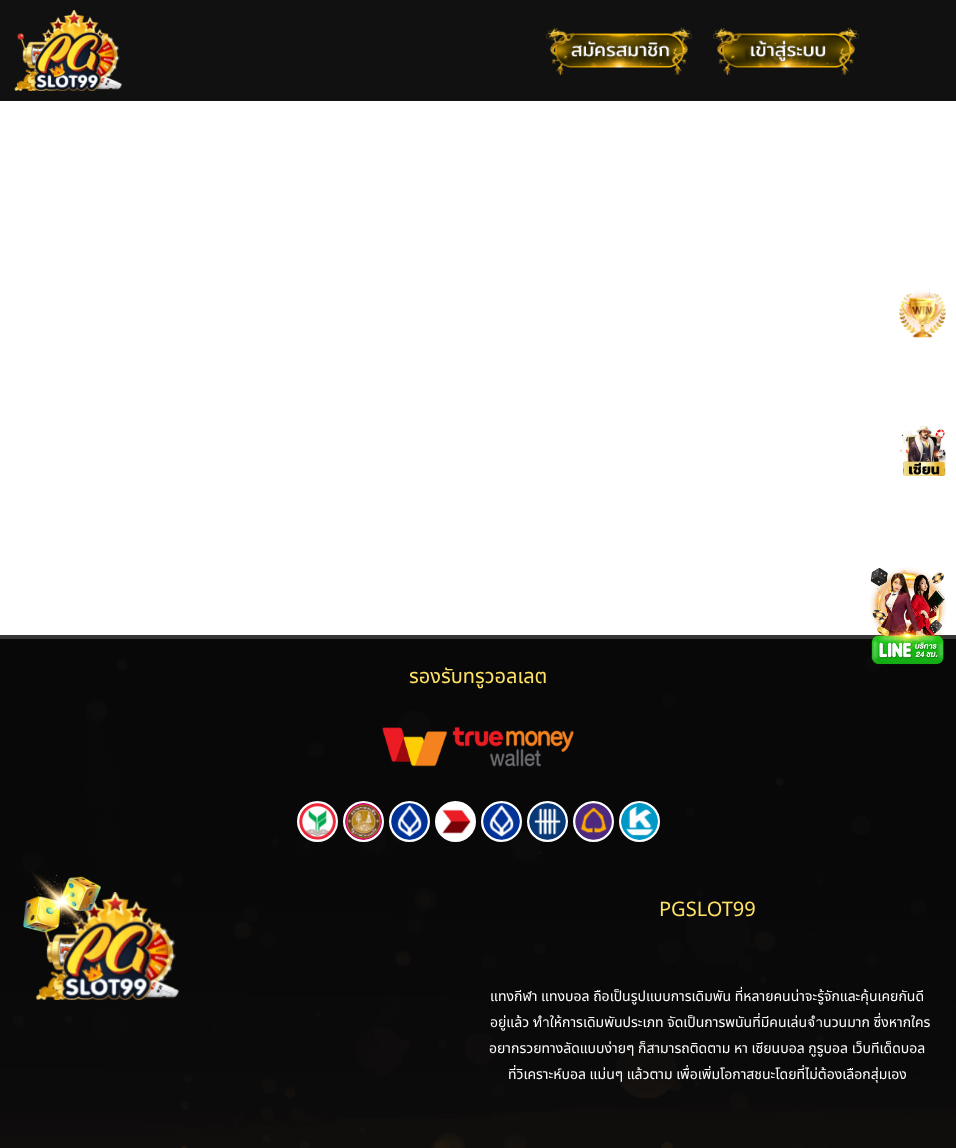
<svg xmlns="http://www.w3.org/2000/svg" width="956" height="1148">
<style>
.a{font:20px Noto Sans Thai;fill:#ffe266}
.b{font:14px Noto Sans Thai;fill:#fff}
</style>
<rect width="100%" height="100%" fill="#fff"/>
<path fill="#111" d="M0 0h956v101H0z"/>
<image href="1.png" x="14" y="10" width="108" height="81"/>
<image href="2.png" x="546" y="27" width="147" height="48"/>
<image href="3.png" x="713" y="27" width="147" height="48"/>
<image href="4.png" x="899" y="287" width="47" height="51"/>
<image href="5.png" x="899" y="425" width="47" height="51"/>
<image href="8.png" x="0" y="639" width="956" height="509"/>
<path fill="#353535" d="M0 635h956v4H0z"/>
<image href="6.png" x="870" y="567" width="76" height="98"/>
<image href="18.png" x="35" y="892" width="145" height="108"/>
<image href="7.png" x="23" y="871" width="78" height="63"/>
<image href="9.png" x="382" y="727" width="192" height="40"/>
<circle fill="#fff" stroke="#fff" stroke-width="2" cx="317.5" cy="821.5" r="19.5"/>
<image href="10.png" x="299" y="803" width="37" height="37"/>
<circle fill="#fff" stroke="#fff" stroke-width="2" cx="363.5" cy="821.5" r="19.5"/>
<image href="11.png" x="345" y="803" width="37" height="37"/>
<circle fill="#fff" stroke="#fff" stroke-width="2" cx="409.5" cy="821.5" r="19.5"/>
<image href="12.png" x="391" y="803" width="37" height="37"/>
<circle fill="#fff" stroke="#fff" stroke-width="2" cx="455.5" cy="821.5" r="19.5"/>
<image href="13.png" x="442" y="809" width="29" height="25"/>
<circle fill="#fff" stroke="#fff" stroke-width="2" cx="501.5" cy="821.5" r="19.5"/>
<image href="14.png" x="483" y="803" width="37" height="37"/>
<circle fill="#fff" stroke="#fff" stroke-width="2" cx="547.5" cy="821.5" r="19.5"/>
<image href="15.png" x="529" y="803" width="37" height="37"/>
<circle fill="#fff" stroke="#fff" stroke-width="2" cx="593.5" cy="821.5" r="19.5"/>
<image href="16.png" x="575" y="803" width="37" height="37"/>
<circle fill="#fff" stroke="#fff" stroke-width="2" cx="639.5" cy="821.5" r="19.5"/>
<image href="17.png" x="621" y="803" width="37" height="37"/>
<text class="a" x="409" y="683">รองรับทรูวอลเลต</text>
<text class="a" x="659" y="916">PGSLOT99</text>
<text class="b" x="490" y="1001">แทงกีฬา แทงบอล ถือเป็นรูปแบบการเดิมพัน ที่หลายคนน่าจะรู้จักและคุ้นเคยกันดี</text>
<text class="b" x="490" y="1027">อยู่แล้ว ทำให้การเดิมพันประเภท จัดเป็นการพนันที่มีคนเล่นจำนวนมาก ซึ่งหากใคร</text>
<text class="b" x="489" y="1053">อยากรวยทางลัดแบบง่ายๆ ก็สามารถติดตาม หา เซียนบอล กูรูบอล เว็บทีเด็ดบอล</text>
<text class="b" x="508" y="1079">ที่วิเคราะห์บอล แม่นๆ แล้วตาม เพื่อเพิ่มโอกาสชนะโดยที่ไม่ต้องเลือกสุ่มเอง</text>
</svg>
